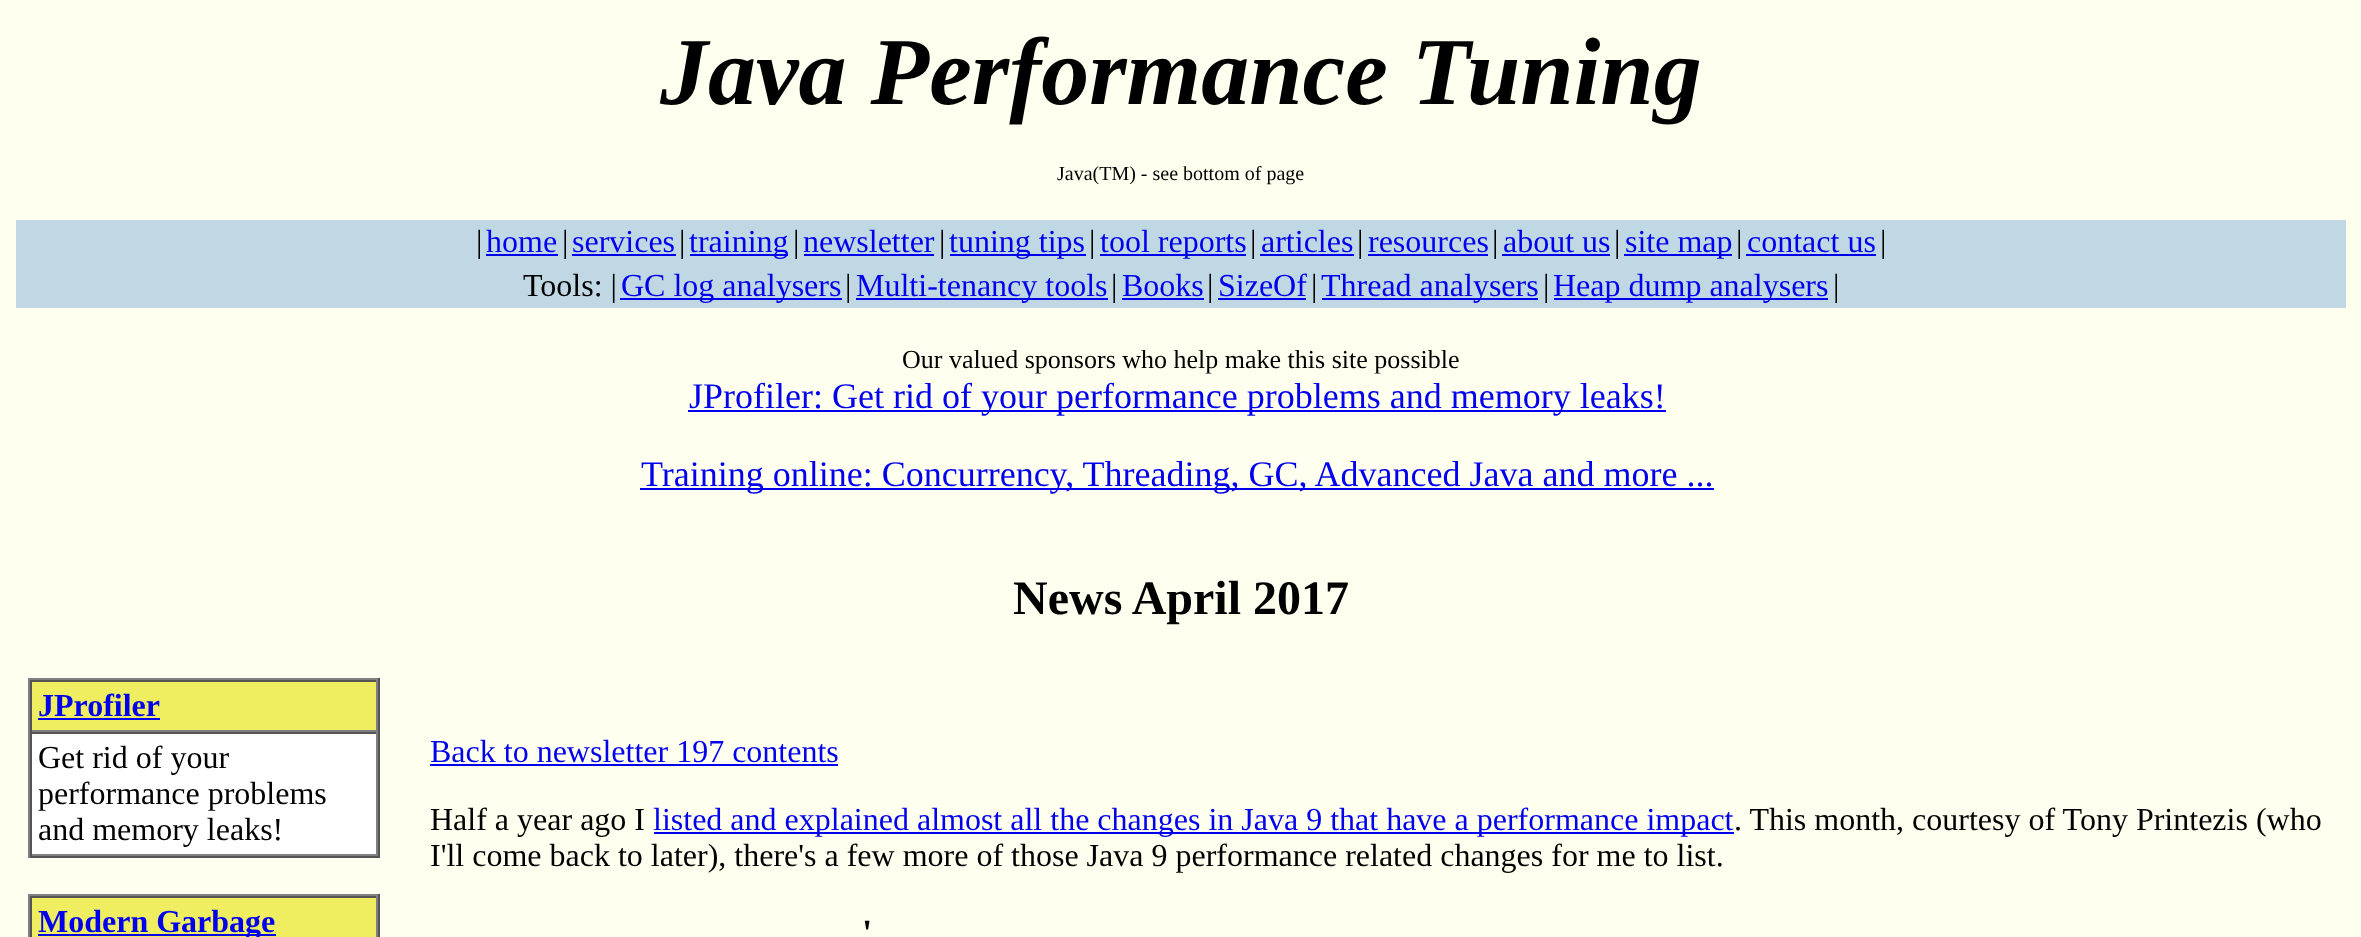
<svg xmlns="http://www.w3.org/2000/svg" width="2361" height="937">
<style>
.a{font:italic bold 96px Liberation Serif;fill:#000}
.b{font:20px Liberation Serif;fill:#000}
.c{font:32px Liberation Serif;fill:#000}
.d{font:32px Liberation Serif;fill:#00e}
.e{font:26px Liberation Serif;fill:#000}
.f{font:36px Liberation Serif;fill:#00e}
.g{font:bold 48px Liberation Serif;fill:#000}
.h{font:bold 32px Liberation Serif;fill:#00e}
.i{font:bold 37px Liberation Serif;fill:#000}
</style>
<rect width="100%" height="100%" fill="#fffff0"/>
<path fill="#bfd8e3" d="M16 220h2330v88H16z"/>
<path fill="#00e" d="M486 254h72v2H486z"/>
<path fill="#00e" d="M572 254h104v2H572z"/>
<path fill="#00e" d="M690 254h98v2H690z"/>
<path fill="#00e" d="M804 254h130v2H804z"/>
<path fill="#00e" d="M950 254h136v2H950z"/>
<path fill="#00e" d="M1100 254h146v2H1100z"/>
<path fill="#00e" d="M1260 254h94v2H1260z"/>
<path fill="#00e" d="M1368 254h120v2H1368z"/>
<path fill="#00e" d="M1502 254h108v2H1502z"/>
<path fill="#00e" d="M1624 254h108v2H1624z"/>
<path fill="#00e" d="M1746 254h130v2H1746z"/>
<path fill="#00e" d="M620 298h222v2H620z"/>
<path fill="#00e" d="M856 298h252v2H856z"/>
<path fill="#00e" d="M1122 298h82v2H1122z"/>
<path fill="#00e" d="M1218 298h88v2H1218z"/>
<path fill="#00e" d="M1322 298h216v2H1322z"/>
<path fill="#00e" d="M1554 298h274v2H1554z"/>
<path fill="#00e" d="M688 410h978v2H688z"/>
<path fill="#00e" d="M640 488h1074v2H640z"/>
<path fill="#808080" d="M28 678h352v2H28z"/>
<path fill="#555" d="M378 678h2v180H378z"/>
<path fill="#555" d="M28 856h352v2H28z"/>
<path fill="#808080" d="M28 678h2v180H28z"/>
<path fill="#eeee60" d="M32 682h344v48H32z"/>
<path fill="#555" d="M30 680h348v2H30z"/>
<path fill="#808080" d="M376 680h2v52H376z"/>
<path fill="#808080" d="M30 730h348v2H30z"/>
<path fill="#555" d="M30 680h2v52H30z"/>
<path fill="#00e" d="M38 718h122v2H38z"/>
<path fill="#fff" d="M32 734h344v120H32z"/>
<path fill="#555" d="M30 732h348v2H30z"/>
<path fill="#808080" d="M376 732h2v124H376z"/>
<path fill="#808080" d="M30 854h348v2H30z"/>
<path fill="#555" d="M30 732h2v124H30z"/>
<path fill="#808080" d="M28 894h352v2H28z"/>
<path fill="#555" d="M378 894h2v43H378z"/>
<path fill="#808080" d="M28 894h2v43H28z"/>
<path fill="#eeee60" d="M32 898h344v39H32z"/>
<path fill="#555" d="M30 896h348v2H30z"/>
<path fill="#808080" d="M376 896h2v41H376z"/>
<path fill="#555" d="M30 896h2v41H30z"/>
<path fill="#00e" d="M38 934h238v2H38z"/>
<path fill="#00e" d="M430 764h408v2H430z"/>
<path fill="#00e" d="M654 832h1080v2H654z"/>
<text class="a" x="660" y="104">Java Performance Tuning</text>
<text class="b" x="1057" y="180">Java(TM) - see bottom of page</text>
<text class="c" x="476" y="252">|</text>
<text class="d" x="486" y="252">home</text>
<text class="c" x="562" y="252">|</text>
<text class="d" x="572" y="252">services</text>
<text class="c" x="679" y="252">|</text>
<text class="d" x="689" y="252">training</text>
<text class="c" x="793" y="252">|</text>
<text class="d" x="803" y="252">newsletter</text>
<text class="c" x="939" y="252">|</text>
<text class="d" x="949" y="252">tuning tips</text>
<text class="c" x="1089" y="252">|</text>
<text class="d" x="1100" y="252">tool reports</text>
<text class="c" x="1250" y="252">|</text>
<text class="d" x="1261" y="252">articles</text>
<text class="c" x="1357" y="252">|</text>
<text class="d" x="1368" y="252">resources</text>
<text class="c" x="1492" y="252">|</text>
<text class="d" x="1503" y="252">about us</text>
<text class="c" x="1614" y="252">|</text>
<text class="d" x="1625" y="252">site map</text>
<text class="c" x="1736" y="252">|</text>
<text class="d" x="1747" y="252">contact us</text>
<text class="c" x="1880" y="252">|</text>
<text class="c" x="523" y="296">Tools: |</text>
<text class="d" x="621" y="296">GC log analysers</text>
<text class="c" x="845" y="296">|</text>
<text class="d" x="856" y="296">Multi-tenancy tools</text>
<text class="c" x="1111" y="296">|</text>
<text class="d" x="1122" y="296">Books</text>
<text class="c" x="1207" y="296">|</text>
<text class="d" x="1218" y="296">SizeOf</text>
<text class="c" x="1311" y="296">|</text>
<text class="d" x="1321" y="296">Thread analysers</text>
<text class="c" x="1543" y="296">|</text>
<text class="d" x="1553" y="296">Heap dump analysers</text>
<text class="c" x="1833" y="296">|</text>
<text class="e" x="902" y="368">Our valued sponsors who help make this site possible</text>
<text class="f" x="689" y="408">JProfiler: Get rid of your performance problems and memory leaks!</text>
<text class="f" x="641" y="486">Training online: Concurrency, Threading, GC, Advanced Java and more ...</text>
<text class="g" x="1013" y="614">News April 2017</text>
<text class="h" x="38" y="716">JProfiler</text>
<text class="c" x="38" y="768">Get rid of your</text>
<text class="c" x="38" y="804">performance problems</text>
<text class="c" x="38" y="840">and memory leaks!</text>
<text class="h" x="38" y="932">Modern Garbage</text>
<text class="d" x="430" y="762">Back to newsletter 197 contents</text>
<text class="c" x="430" y="830">Half a year ago I</text>
<text class="d" x="653" y="830">listed and explained almost all the changes in Java 9 that have a performance impact</text>
<text class="c" x="1734" y="830">. This month, courtesy of Tony Printezis (who</text>
<text class="c" x="430" y="866">I'll come back to later), there's a few more of those Java 9 performance related changes for me to list.</text>
<text class="i" x="862" y="945">'</text>
</svg>
